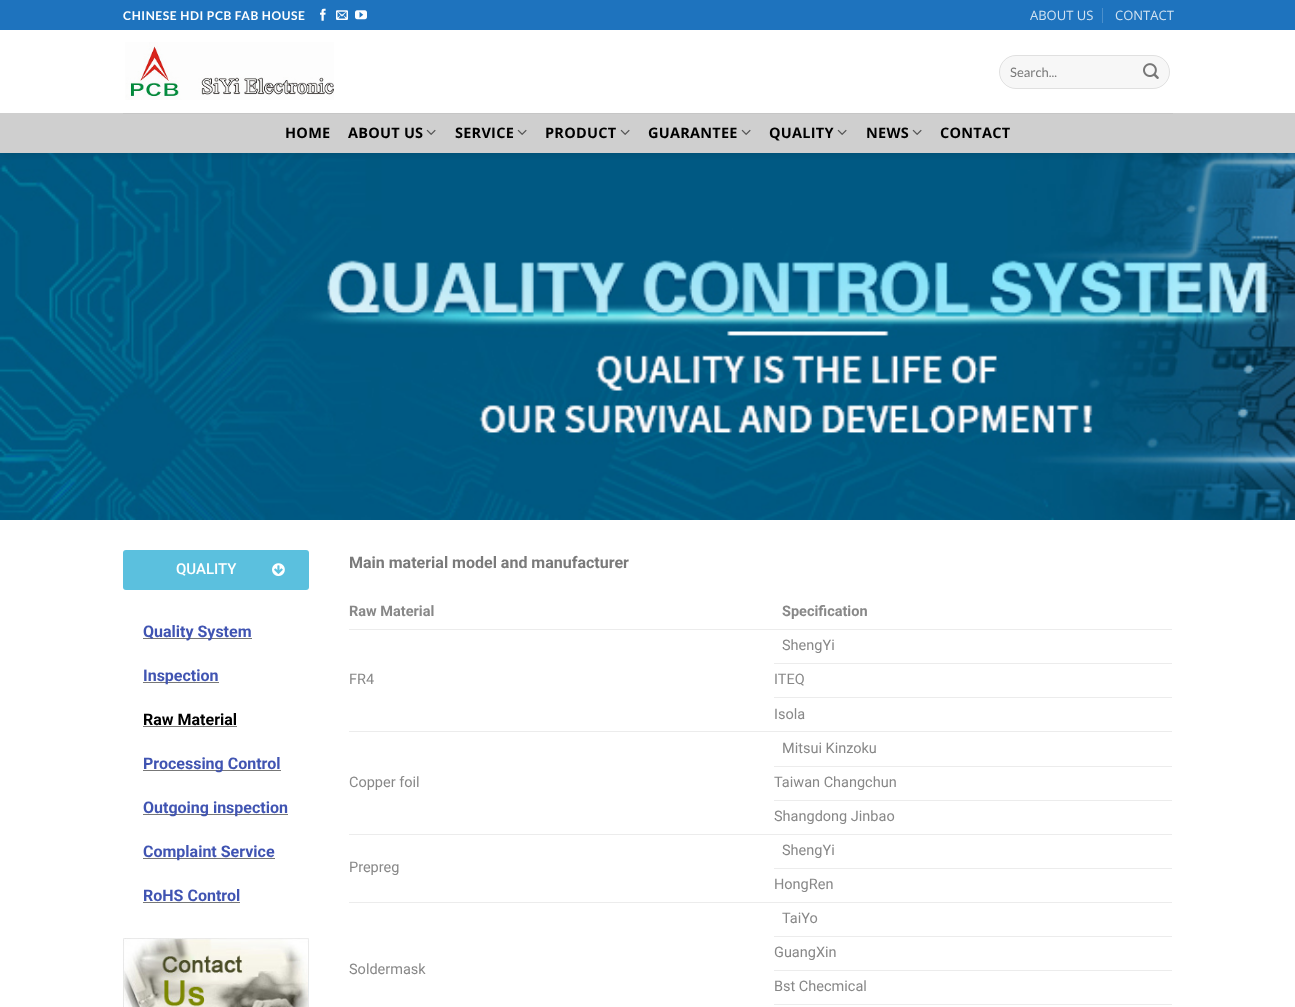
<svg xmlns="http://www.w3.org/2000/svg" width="1295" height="1007">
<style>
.a{font:bold 12px Lato;letter-spacing:0.6px;fill:#fff}
.b{font:13px Open Sans;fill:#d2e3f2}
.c{font:13px Lato;fill:#7a7a7a}
.d{font:bold 14.5px Open Sans;letter-spacing:0.25px;fill:#000}
.e{font:500 15px Roboto;fill:#fff}
.f{font:bold 16px Roboto;fill:#4054b2}
.g{font:bold 16px Roboto;fill:#000}
.h{font:bold 16px Roboto;fill:#7a7a7a}
.i{font:bold 14.5px Roboto;fill:#888}
.j{font:14.5px Roboto;fill:#888}
</style>
<defs>
<clipPath id="clip1"><path d="M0 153h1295v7H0z"/></clipPath>
</defs>
<rect width="100%" height="100%" fill="#fff"/>
<image href="7.png" x="0" y="153" width="1295" height="367"/>
<g clip-path="url(#clip1)">
<path fill="#00000026" filter="blur(5px)" d="M1 1h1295v153H1z"/>
</g>
<path fill="#1e73be" d="M0 0h1295v30H0z"/>
<image href="1.png" x="320" y="8" width="6" height="13"/>
<image href="2.png" x="336" y="10" width="12" height="10"/>
<image href="3.png" x="355" y="10" width="12" height="10"/>
<path fill="#4b8fcb" d="M1102 8h1v15H1102z"/>
<image href="4.png" x="125" y="42" width="209" height="58"/>
<rect fill="#f7f7f7" x="999" y="55" width="171" height="34" rx="17"/>
<rect fill="none" stroke="#00000017" x="999.5" y="55.5" width="170" height="33" rx="16.5"/>
<image href="5.png" x="1143" y="63" width="16" height="16"/>
<path fill="#cfcfcf" d="M0 113h1295v40H0z"/>
<path fill="#c6c6c6" d="M123 113h1050v1H123z"/>
<image href="6.png" x="426" y="129" width="10" height="6"/>
<image href="6.png" x="517" y="129" width="10" height="6"/>
<image href="6.png" x="620" y="129" width="10" height="6"/>
<image href="6.png" x="741" y="129" width="10" height="6"/>
<image href="6.png" x="837" y="129" width="10" height="6"/>
<image href="6.png" x="912" y="129" width="10" height="6"/>
<rect fill="#5bc0de" x="123" y="550" width="186" height="40" rx="3"/>
<image href="8.png" x="272" y="563" width="13" height="14"/>
<path fill="#777" d="M143 638h109v1H143z"/>
<path fill="#777" d="M143 682h76v1H143z"/>
<path fill="#777" d="M143 726h94v1H143z"/>
<path fill="#777" d="M143 770h138v1H143z"/>
<path fill="#777" d="M143 814h145v1H143z"/>
<path fill="#777" d="M143 858h132v1H143z"/>
<path fill="#777" d="M143 902h97v1H143z"/>
<image href="9.png" x="123" y="938" width="186" height="69"/>
<path fill="#ececec" d="M349 629h823v1H349z"/>
<path fill="#ececec" d="M774 663h398v1H774z"/>
<path fill="#ececec" d="M349 731h823v1H349z"/>
<path fill="#ececec" d="M774 697h398v1H774z"/>
<path fill="#ececec" d="M774 766h398v1H774z"/>
<path fill="#ececec" d="M349 834h823v1H349z"/>
<path fill="#ececec" d="M774 800h398v1H774z"/>
<path fill="#ececec" d="M774 868h398v1H774z"/>
<path fill="#ececec" d="M349 902h823v1H349z"/>
<path fill="#ececec" d="M774 936h398v1H774z"/>
<path fill="#ececec" d="M774 970h398v1H774z"/>
<path fill="#ececec" d="M774 1004h398v1H774z"/>
<text class="a" x="123" y="20">CHINESE HDI PCB FAB HOUSE</text>
<text class="b" x="1030" y="20">ABOUT US</text>
<text class="b" x="1115" y="20">CONTACT</text>
<text class="c" x="1010" y="77">Search...</text>
<text class="d" x="285" y="138">HOME</text>
<text class="d" x="348" y="138">ABOUT US</text>
<text class="d" x="455" y="138">SERVICE</text>
<text class="d" x="545" y="138">PRODUCT</text>
<text class="d" x="648" y="138">GUARANTEE</text>
<text class="d" x="769" y="138">QUALITY</text>
<text class="d" x="866" y="138">NEWS</text>
<text class="d" x="940" y="138">CONTACT</text>
<text class="e" x="176" y="574">QUALITY</text>
<text class="f" x="143" y="637">Quality System</text>
<text class="f" x="143" y="681">Inspection</text>
<text class="g" x="143" y="725">Raw Material</text>
<text class="f" x="143" y="769">Processing Control</text>
<text class="f" x="143" y="813">Outgoing inspection</text>
<text class="f" x="143" y="857">Complaint Service</text>
<text class="f" x="143" y="901">RoHS Control</text>
<text class="h" x="349" y="568">Main material model and manufacturer</text>
<text class="i" x="349" y="616">Raw Material</text>
<text class="i" x="782" y="616">Specification</text>
<text class="j" x="782" y="650">ShengYi</text>
<text class="j" x="349" y="684">FR4</text>
<text class="j" x="774" y="684">ITEQ</text>
<text class="j" x="774" y="719">Isola</text>
<text class="j" x="782" y="753">Mitsui Kinzoku</text>
<text class="j" x="349" y="787">Copper foil</text>
<text class="j" x="774" y="787">Taiwan Changchun</text>
<text class="j" x="774" y="821">Shangdong Jinbao</text>
<text class="j" x="782" y="855">ShengYi</text>
<text class="j" x="349" y="872">Prepreg</text>
<text class="j" x="774" y="889">HongRen</text>
<text class="j" x="782" y="923">TaiYo</text>
<text class="j" x="349" y="974">Soldermask</text>
<text class="j" x="774" y="957">GuangXin</text>
<text class="j" x="774" y="991">Bst Checmical</text>
</svg>
